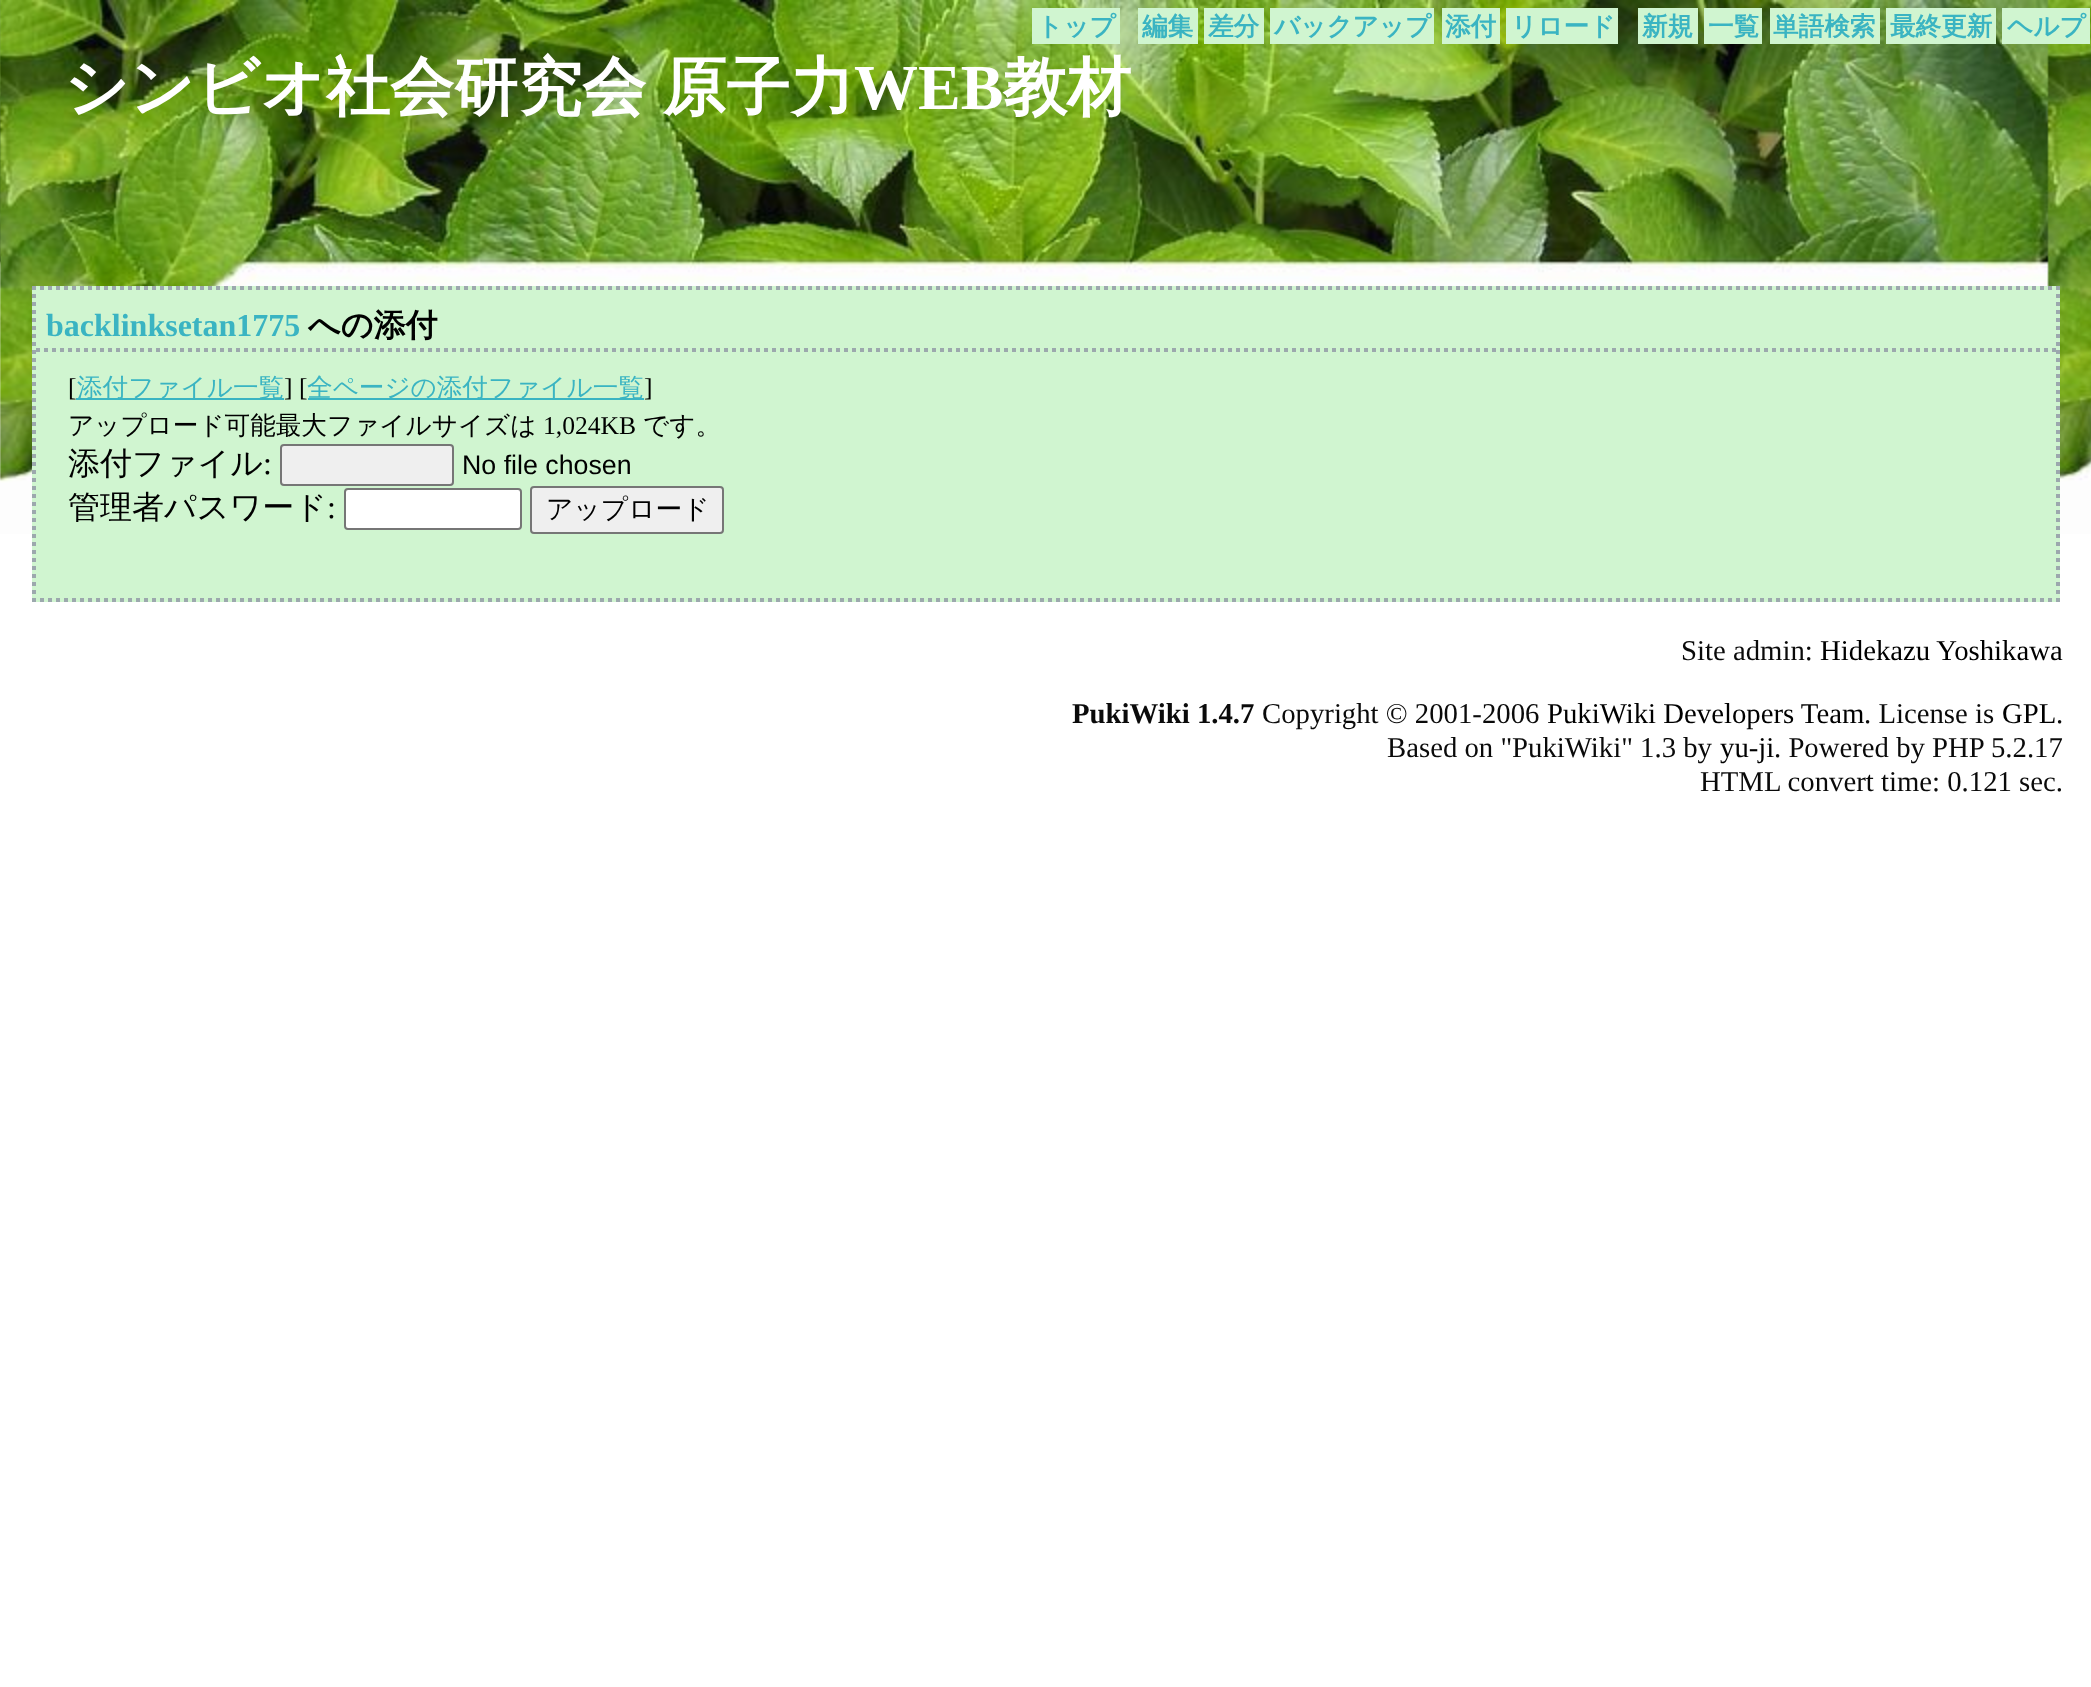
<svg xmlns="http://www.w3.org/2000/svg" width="2091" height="1687">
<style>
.a{font:bold 25.6px WenQuanYi Zen Hei;fill:#3ab4c2}
.b{font:bold 64px WenQuanYi Zen Hei;fill:#fff}
.c{font:bold 64px Liberation Serif;fill:#fff}
.d{font:bold 32px Liberation Serif;fill:#3ab4c2}
.e{font:bold 32px WenQuanYi Zen Hei;fill:#000}
.f{font:25.6px Liberation Serif;fill:#000}
.g{font:500 25.6px WenQuanYi Zen Hei;fill:#3ab4c2}
.h{font:500 25.6px WenQuanYi Zen Hei;fill:#000}
.i{font:500 32px WenQuanYi Zen Hei;fill:#000}
.j{font:32px Liberation Serif;fill:#000}
.k{font:26.75px Liberation Sans;fill:#000}
.l{font:500 26.75px WenQuanYi Zen Hei;fill:#000}
.m{font:28.75px Liberation Serif;fill:#0a0a0a}
.n{font:28.75px Liberation Serif;fill:#000}
.o{font:bold 28.75px Liberation Serif;fill:#0a0a0a}
</style>
<rect width="100%" height="100%" fill="#fff"/>
<image href="1.png" x="0" y="0" width="2091" height="534"/>
<path fill="#d0f5d0" d="M1032 8h88v36H1032z"/>
<path fill="#d0f5d0" d="M1138 8h60v36H1138z"/>
<path fill="#d0f5d0" d="M1204 8h60v36H1204z"/>
<path fill="#d0f5d0" d="M1270 8h164v36H1270z"/>
<path fill="#d0f5d0" d="M1442 8h58v36H1442z"/>
<path fill="#d0f5d0" d="M1506 8h112v36H1506z"/>
<path fill="#d0f5d0" d="M1638 8h60v36H1638z"/>
<path fill="#d0f5d0" d="M1704 8h58v36H1704z"/>
<path fill="#d0f5d0" d="M1770 8h110v36H1770z"/>
<path fill="#d0f5d0" d="M1886 8h110v36H1886z"/>
<path fill="#d0f5d0" d="M2002 8h88v36H2002z"/>
<path fill="#d0f5d0" d="M32 286h2028v316H32z"/>
<path fill="none" stroke="#9ca8ad" stroke-width="4" stroke-dasharray="4 4" d="M32 288h2028"/>
<path fill="none" stroke="#9ca8ad" stroke-width="4" stroke-dasharray="4 4" d="M2058 286v316"/>
<path fill="none" stroke="#9ca8ad" stroke-width="4" stroke-dasharray="4 4" d="M32 600h2028"/>
<path fill="none" stroke="#9ca8ad" stroke-width="4" stroke-dasharray="4 4" d="M34 286v316"/>
<path fill="none" stroke="#9ca8ad" stroke-width="4" stroke-dasharray="4 4" d="M36 350h2020"/>
<path fill="#3ab4c2" d="M76 398h208v2H76z"/>
<path fill="#3ab4c2" d="M308 398h336v2H308z"/>
<rect fill="#efefef" stroke="#767676" stroke-width="2" x="281" y="445" width="172" height="40" rx="3"/>
<rect fill="#fff" stroke="#767676" stroke-width="2" x="345" y="489" width="176" height="40" rx="3"/>
<rect fill="#efefef" stroke="#767676" stroke-width="2" x="531" y="487" width="192" height="46" rx="3"/>
<text class="a" x="1037" y="35">トップ</text>
<text class="a" x="1142" y="35">編集</text>
<text class="a" x="1208" y="35">差分</text>
<text class="a" x="1274" y="35">バックアップ</text>
<text class="a" x="1445" y="35">添付</text>
<text class="a" x="1511" y="35">リロード</text>
<text class="a" x="1642" y="35">新規</text>
<text class="a" x="1708" y="35">一覧</text>
<text class="a" x="1773" y="35">単語検索</text>
<text class="a" x="1890" y="35">最終更新</text>
<text class="a" x="2007" y="35">ヘルプ</text>
<text class="b" x="64" y="109" word-spacing="-3">シンビオ社会研究会 原子力</text>
<text class="c" x="854" y="109">WEB</text>
<text class="b" x="1003" y="109">教材</text>
<text class="d" x="46" y="336">backlinksetan1775</text>
<text class="e" x="308" y="336">への添付</text>
<text class="f" x="68" y="396">[</text>
<text class="g" x="77" y="396">添付ファイル一覧</text>
<text class="f" x="284" y="396">] [</text>
<text class="g" x="307" y="396">全ページの添付ファイル一覧</text>
<text class="f" x="644" y="396">]</text>
<text class="h" x="68" y="434">アップロード可能最大ファイルサイズは</text>
<text class="f" x="543" y="434">1,024KB</text>
<text class="h" x="643" y="434">です。</text>
<text class="i" x="68" y="474">添付ファイル</text>
<text class="j" x="263" y="474">:</text>
<text class="k" x="462" y="474">No file chosen</text>
<text class="i" x="68" y="518">管理者パスワード</text>
<text class="j" x="327" y="518">:</text>
<text class="l" x="546" y="518">アップロード</text>
<text class="m" x="1681" y="660">Site admin:</text>
<text class="n" x="1820" y="660">Hidekazu Yoshikawa</text>
<text class="o" x="1072" y="723">PukiWiki 1.4.7</text>
<text class="m" x="1262" y="723">Copyright © 2001-2006</text>
<text class="n" x="1547" y="723">PukiWiki Developers Team</text>
<text class="m" x="1864" y="723">. License is</text>
<text class="n" x="2002" y="723">GPL</text>
<text class="m" x="2056" y="723">.</text>
<text class="m" x="1387" y="757">Based on "PukiWiki" 1.3 by</text>
<text class="n" x="1720" y="757">yu-ji</text>
<text class="m" x="1774" y="757">. Powered by PHP 5.2.17</text>
<text class="m" x="1700" y="791">HTML convert time: 0.121 sec.</text>
</svg>
